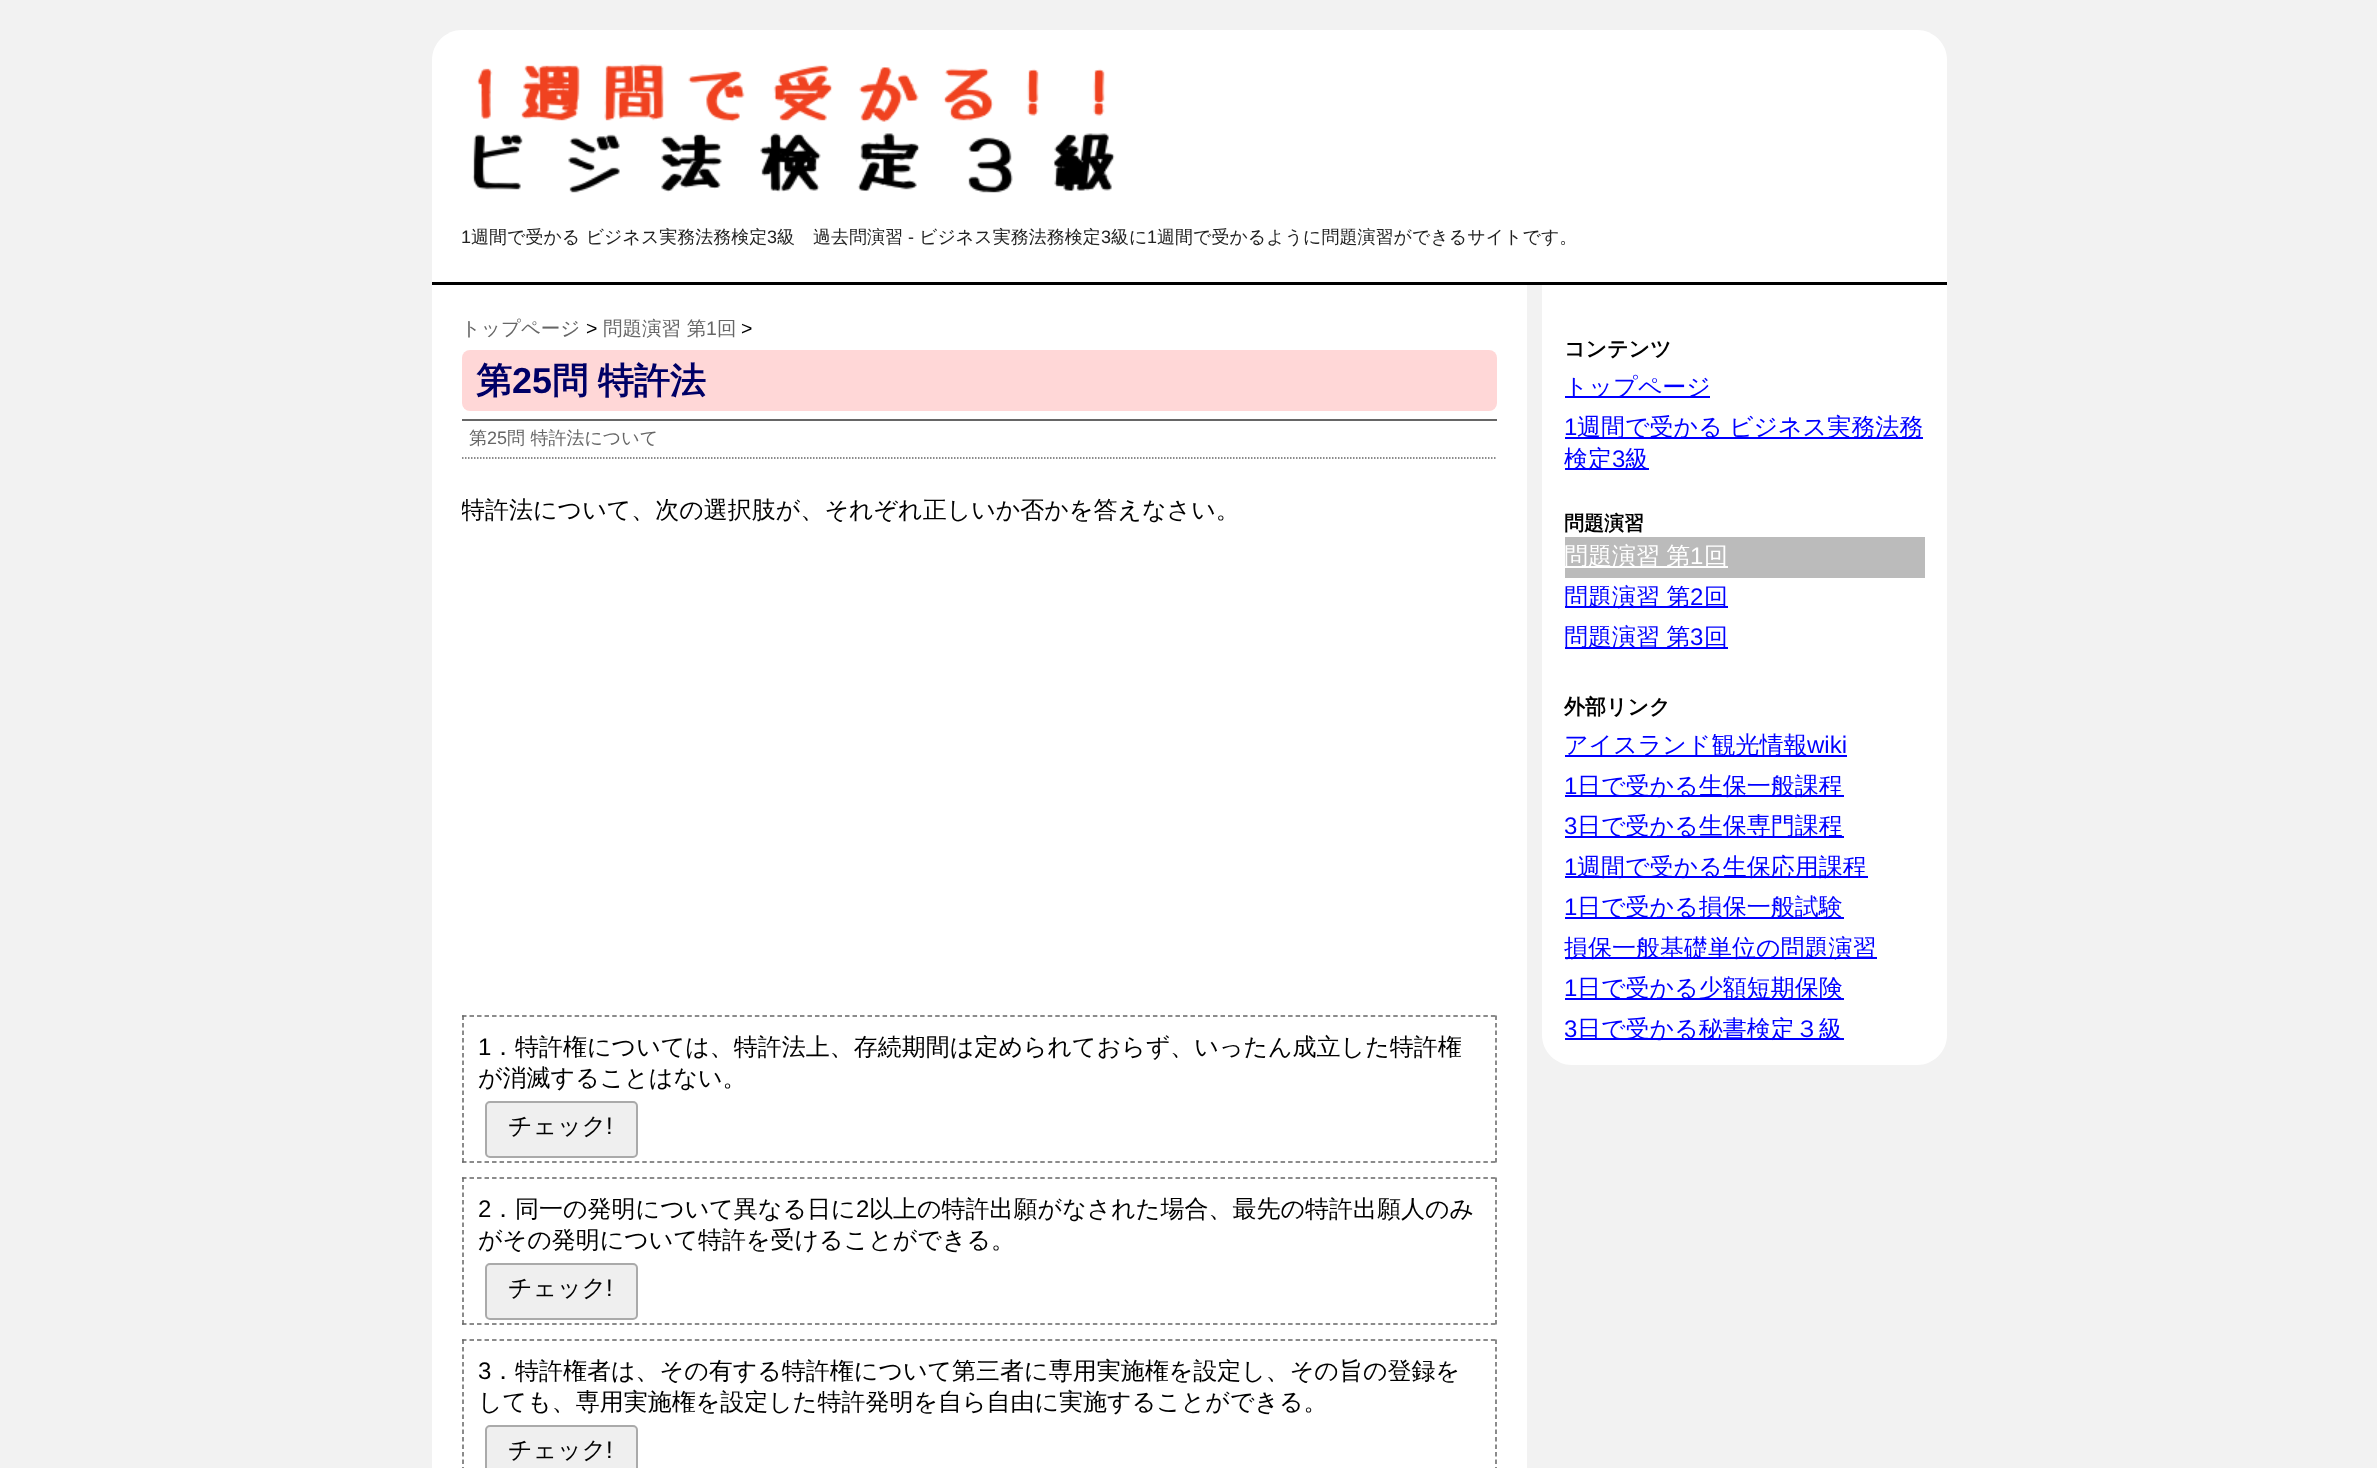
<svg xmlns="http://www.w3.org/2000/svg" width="2377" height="1468">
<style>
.a{font:18px Liberation Sans;fill:#222}
.b{font:500 18px WenQuanYi Zen Hei;fill:#222}
.c{font:500 19.5px WenQuanYi Zen Hei;fill:#666}
.d{font:19.5px Liberation Sans;fill:#000}
.e{font:19.5px Liberation Sans;fill:#666}
.f{font:bold 36px WenQuanYi Zen Hei;fill:#006}
.g{font:bold 36px Liberation Sans;fill:#006}
.h{font:500 18px WenQuanYi Zen Hei;fill:#666}
.i{font:18px Liberation Sans;fill:#666}
.j{font:500 24px WenQuanYi Zen Hei;fill:#000}
.k{font:24px Liberation Sans;fill:#000}
.l{font:bold 21px WenQuanYi Zen Hei;fill:#000}
.m{font:500 24px WenQuanYi Zen Hei;fill:#00f}
.n{font:24px Liberation Sans;fill:#00f}
.o{font:bold 20px WenQuanYi Zen Hei;fill:#000}
.p{font:500 24px WenQuanYi Zen Hei;fill:#fff}
.q{font:24px Liberation Sans;fill:#fff}
</style>
<defs>
<clipPath id="clip1"><path d="M462 315h1035v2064H462z"/></clipPath>
</defs>
<rect width="100%" height="100%" fill="#f2f2f2"/>
<path fill="#fff" d="M462 30h1455c16.5 0 30 13.5 30 30v225h-1515v-225c0-16.5 13.5-30 30-30z"/>
<path fill="#000" d="M432 282h1515v3H432z"/>
<image href="1.png" x="472" y="64" width="643" height="129"/>
<path fill="#fff" d="M432 285h1095v1183H432z"/>
<rect fill="#ffd7d7" x="462" y="350" width="1035" height="61" rx="8"/>
<path fill="#666" d="M462 419h1035v2H462z"/>
<path fill="none" stroke="#666" stroke-width="1.5" stroke-dasharray="1.5 1.5" d="M462 458h1035"/>
<path fill="none" stroke="#666" stroke-width="1.5" stroke-dasharray="4.5 3.01" d="M462 1016h1035"/>
<path fill="none" stroke="#666" stroke-width="1.5" stroke-dasharray="4.5 3" d="M1496 1015.5v147"/>
<path fill="none" stroke="#666" stroke-width="1.5" stroke-dasharray="4.5 3.01" d="M462 1162h1035"/>
<path fill="none" stroke="#666" stroke-width="1.5" stroke-dasharray="4.5 3" d="M463 1015.5v147"/>
<rect fill="#efefef" stroke="#aaa" stroke-width="2" x="486" y="1102" width="151" height="55" rx="4"/>
<path fill="none" stroke="#666" stroke-width="1.5" stroke-dasharray="4.5 3.01" d="M462 1178h1035"/>
<path fill="none" stroke="#666" stroke-width="1.5" stroke-dasharray="4.5 3" d="M1496 1177.5v147"/>
<path fill="none" stroke="#666" stroke-width="1.5" stroke-dasharray="4.5 3.01" d="M462 1324h1035"/>
<path fill="none" stroke="#666" stroke-width="1.5" stroke-dasharray="4.5 3" d="M463 1177.5v147"/>
<rect fill="#efefef" stroke="#aaa" stroke-width="2" x="486" y="1264" width="151" height="55" rx="4"/>
<path fill="none" stroke="#666" stroke-width="1.5" stroke-dasharray="4.5 3.01" d="M462 1340h1035"/>
<path fill="none" stroke="#666" stroke-width="1.5" stroke-dasharray="4.5 3" d="M1496 1339.5v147"/>
<path fill="none" stroke="#666" stroke-width="1.5" stroke-dasharray="4.5 3" d="M463 1339.5v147"/>
<rect fill="#efefef" stroke="#aaa" stroke-width="2" x="486" y="1426" width="151" height="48" rx="4"/>
<path fill="#fff" d="M1542 285h405v750c0 16.5-13.5 30-30 30h-345c-16.5 0-30-13.5-30-30z"/>
<path fill="#00f" d="M1565 396h145v2H1565z"/>
<path fill="#00f" d="M1565 437h358v2H1565z"/>
<path fill="#00f" d="M1565 468h84v2H1565z"/>
<path fill="#bbb" d="M1565 537h360v41H1565z"/>
<path fill="#fff" d="M1565 566h163v2H1565z"/>
<path fill="#00f" d="M1565 606h163v2H1565z"/>
<path fill="#00f" d="M1565 647h163v2H1565z"/>
<path fill="#00f" d="M1565 755h282v2H1565z"/>
<path fill="#00f" d="M1565 795h279v2H1565z"/>
<path fill="#00f" d="M1565 836h279v2H1565z"/>
<path fill="#00f" d="M1565 876h303v2H1565z"/>
<path fill="#00f" d="M1565 917h279v2H1565z"/>
<path fill="#00f" d="M1565 957h312v2H1565z"/>
<path fill="#00f" d="M1565 998h279v2H1565z"/>
<path fill="#00f" d="M1565 1038h279v2H1565z"/>
<text class="a" x="461" y="243">1</text>
<text class="b" x="471" y="243">週間で受かる ビジネス実務法務検定</text>
<text class="a" x="767" y="243">3</text>
<text class="b" x="777" y="243">級　過去問演習</text>
<text class="a" x="908" y="243">-</text>
<text class="b" x="919" y="243">ビジネス実務法務検定</text>
<text class="a" x="1101" y="243">3</text>
<text class="b" x="1111" y="243">級に</text>
<text class="a" x="1147" y="243">1</text>
<text class="b" x="1157" y="243">週間で受かるように問題演習ができるサイトです。</text>
<text class="c" x="461" y="335">トップページ</text>
<text class="d" x="586" y="335">&gt;</text>
<text class="c" x="603" y="335">問題演習 第</text>
<text class="e" x="706" y="335">1</text>
<text class="c" x="717" y="335">回</text>
<text class="d" x="741" y="335">&gt;</text>
<text class="f" x="476" y="393">第</text>
<text class="g" x="512" y="393">25</text>
<text class="f" x="552" y="393" word-spacing="-1">問 特許法</text>
<text class="h" x="469" y="444">第</text>
<text class="i" x="487" y="444">25</text>
<text class="h" x="507" y="444">問 特許法について</text>
<g clip-path="url(#clip1)">
<text class="j" x="461" y="518">特許法について、次の選択肢が、それぞれ正しいか否かを答えなさい。</text>
</g>
<text class="k" x="478" y="1055">1</text>
<text class="j" x="491" y="1055">．特許権については、特許法上、存続期間は定められておらず、いったん成立した特許権</text>
<text class="j" x="478" y="1086">が消滅することはない。</text>
<text class="j" x="508" y="1134">チェック</text>
<text class="k" x="606" y="1134">!</text>
<text class="k" x="478" y="1217">2</text>
<text class="j" x="491" y="1217">．同一の発明について異なる日に</text>
<text class="k" x="856" y="1217">2</text>
<text class="j" x="869" y="1217">以上の特許出願がなされた場合、最先の特許出願人のみ</text>
<text class="j" x="478" y="1248">がその発明について特許を受けることができる。</text>
<text class="j" x="508" y="1296">チェック</text>
<text class="k" x="606" y="1296">!</text>
<text class="k" x="478" y="1379">3</text>
<text class="j" x="491" y="1379">．特許権者は、その有する特許権について第三者に専用実施権を設定し、その旨の登録を</text>
<text class="j" x="478" y="1410">しても、専用実施権を設定した特許発明を自ら自由に実施することができる。</text>
<text class="j" x="508" y="1458">チェック</text>
<text class="k" x="606" y="1458">!</text>
<text class="l" x="1564" y="356">コンテンツ</text>
<text class="m" x="1564" y="395">トップページ</text>
<text class="n" x="1564" y="435">1</text>
<text class="m" x="1577" y="435" word-spacing="-1">週間で受かる ビジネス実務法務</text>
<text class="m" x="1564" y="467">検定</text>
<text class="n" x="1612" y="467">3</text>
<text class="m" x="1625" y="467">級</text>
<text class="o" x="1564" y="530">問題演習</text>
<text class="p" x="1564" y="564" word-spacing="-1">問題演習 第</text>
<text class="q" x="1690" y="564">1</text>
<text class="p" x="1704" y="564">回</text>
<text class="m" x="1564" y="605" word-spacing="-1">問題演習 第</text>
<text class="n" x="1690" y="605">2</text>
<text class="m" x="1704" y="605">回</text>
<text class="m" x="1564" y="645" word-spacing="-1">問題演習 第</text>
<text class="n" x="1690" y="645">3</text>
<text class="m" x="1704" y="645">回</text>
<text class="l" x="1564" y="714">外部リンク</text>
<text class="m" x="1564" y="753">アイスランド観光情報</text>
<text class="n" x="1807" y="753">wiki</text>
<text class="n" x="1564" y="794">1</text>
<text class="m" x="1577" y="794">日で受かる生保一般課程</text>
<text class="n" x="1564" y="834">3</text>
<text class="m" x="1577" y="834">日で受かる生保専門課程</text>
<text class="n" x="1564" y="875">1</text>
<text class="m" x="1577" y="875">週間で受かる生保応用課程</text>
<text class="n" x="1564" y="915">1</text>
<text class="m" x="1577" y="915">日で受かる損保一般試験</text>
<text class="m" x="1564" y="956">損保一般基礎単位の問題演習</text>
<text class="n" x="1564" y="996">1</text>
<text class="m" x="1577" y="996">日で受かる少額短期保険</text>
<text class="n" x="1564" y="1037">3</text>
<text class="m" x="1577" y="1037">日で受かる秘書検定３級</text>
</svg>
